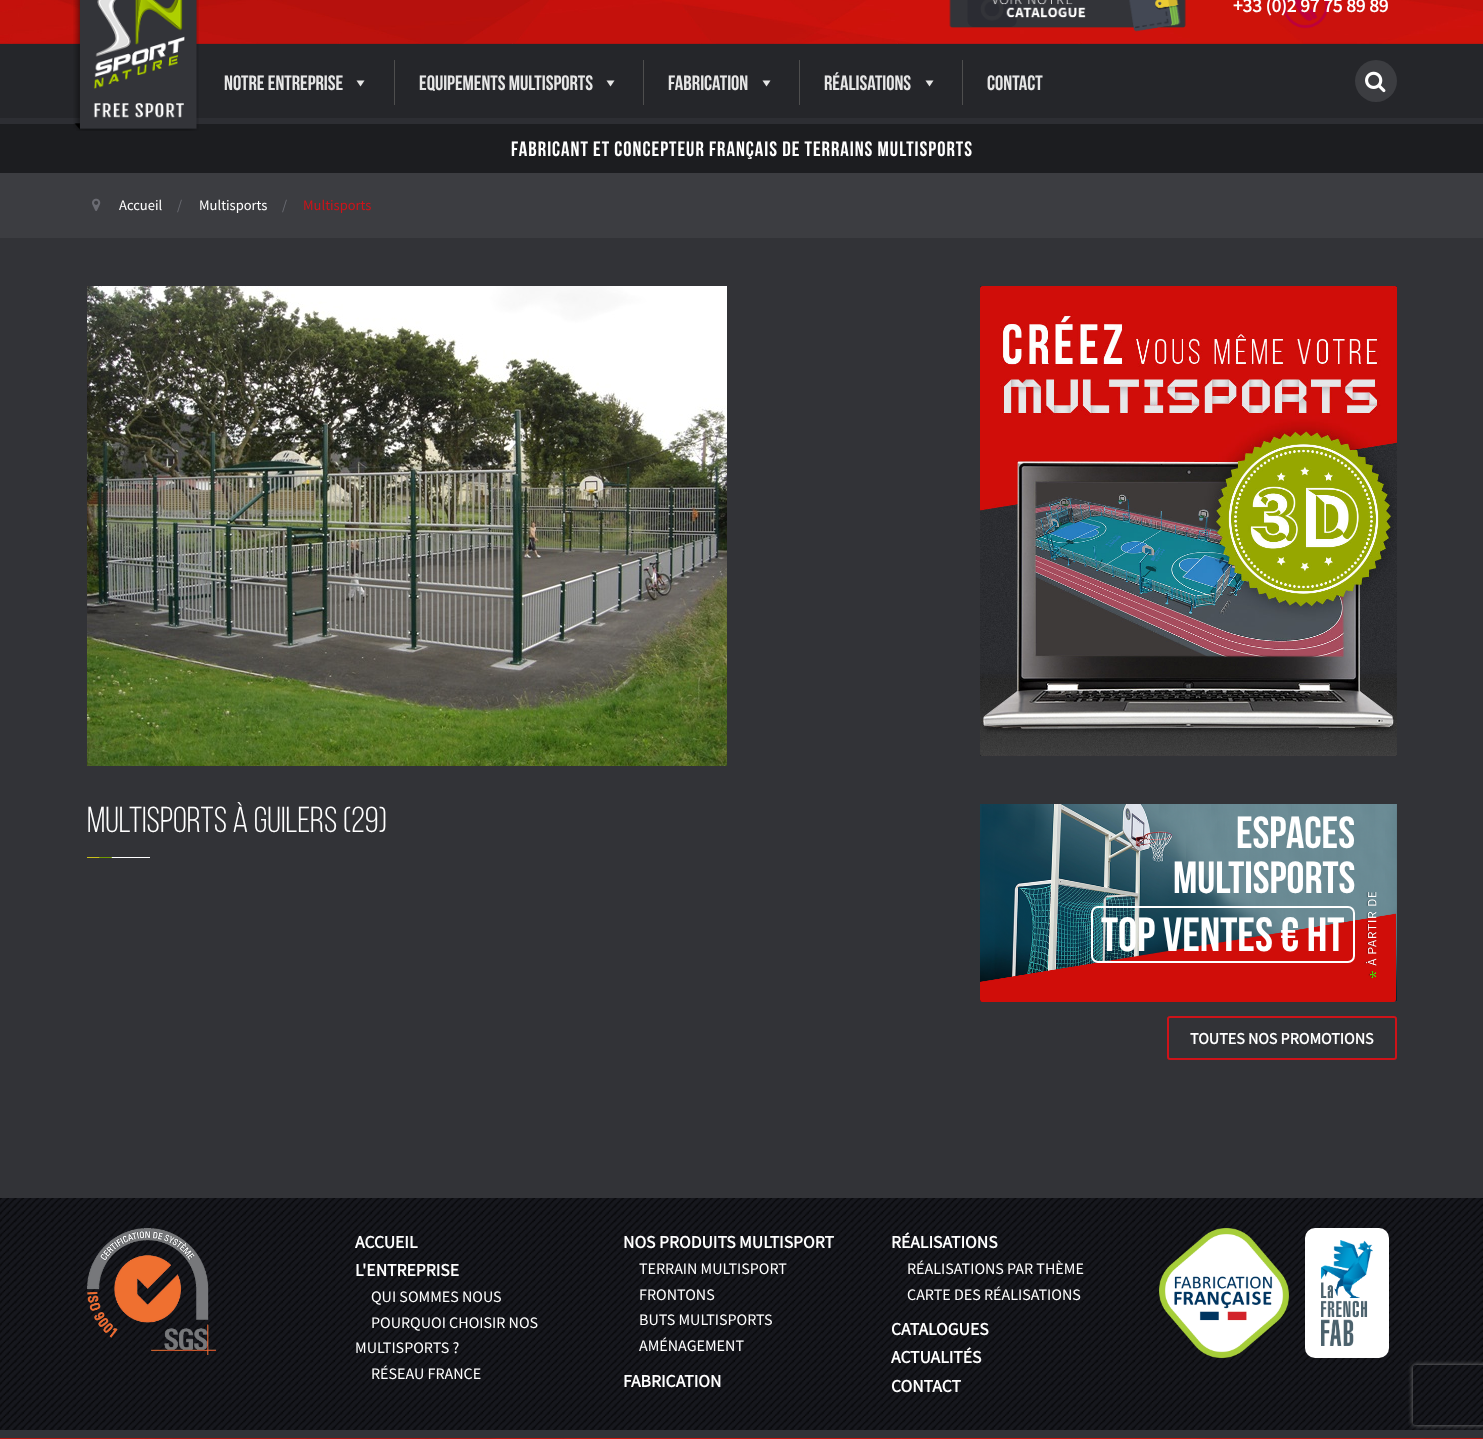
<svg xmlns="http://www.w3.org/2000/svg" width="1483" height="1439">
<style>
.a{font:bold 19.25px Source Sans Pro;fill:#fff}
.b{font:bold 20.8px Bebas Neue;fill:#e6e6e6}
.c{font:bold 20.8px Bebas Neue;letter-spacing:1px;fill:#fff}
.d{font:14.5px Source Sans Pro;fill:#fff}
.e{font:14.5px Source Sans Pro;fill:#6b6c73}
.f{font:14.5px Source Sans Pro;fill:#ce1319}
.g{font:36px Bebas Neue;fill:#fff}
.h{font:bold 45px Bebas Neue;fill:#fff}
.i{font:bold 48px Bebas Neue;fill:#fff}
.j{font:bold 16px Source Sans Pro;fill:#fff}
.k{font:bold 17.6px Source Sans Pro;fill:#fff}
.l{font:16px Source Sans Pro;fill:#fff}
</style>
<defs>
<clipPath id="clip1"><path d="M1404 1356h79v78h-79zm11 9h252c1 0 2 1 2 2v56c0 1-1 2-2 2h-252c-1 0-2-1-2-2v-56c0-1 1-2 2-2z" clip-rule="evenodd"/></clipPath>
</defs>
<rect width="100%" height="100%" fill="#323337"/>
<image href="2.png" x="0" y="0" width="1483" height="44"/>
<path fill="#25262a" d="M0 44h1483v74H0z"/>
<path fill="#2d2e33" d="M0 118h1483v6H0z"/>
<path fill="#1c1d20" d="M0 124h1483v49H0z"/>
<image href="1.png" x="73" y="0" width="126" height="131"/>
<image href="3.png" x="949" y="0" width="237" height="32"/>
<image href="4.png" x="1283" y="0" width="46" height="29"/>
<path fill="#4e4e4e" d="M394 60h1v45H394z"/>
<path fill="#e6e6e6" d="M364.5 80.5l-4 6l-4-6z"/>
<path fill="#4e4e4e" d="M643 60h1v45H643z"/>
<path fill="#e6e6e6" d="M614.5 80.5l-4 6l-4-6z"/>
<path fill="#4e4e4e" d="M799 60h1v45H799z"/>
<path fill="#e6e6e6" d="M770.5 80.5l-4 6l-4-6z"/>
<path fill="#4e4e4e" d="M962 60h1v45H962z"/>
<path fill="#e6e6e6" d="M933.5 80.5l-4 6l-4-6z"/>
<circle fill="#3c3d41" cx="1376" cy="81" r="21"/>
<image href="5.png" x="1365" y="71" width="21" height="22"/>
<path fill="#3c3d41" d="M0 173h1483v65H0z"/>
<image href="6.png" x="92" y="198" width="9" height="13"/>
<image href="7.png" x="87" y="286" width="640" height="480"/>
<image href="8.png" x="87" y="857" width="63" height="1"/>
<image href="9.png" x="980" y="286" width="417" height="470"/>
<image href="10.png" x="980" y="804" width="417" height="197"/>
<image href="11.png" x="980" y="892" width="416" height="110"/>
<rect fill="none" stroke="#fff" stroke-width="2" x="1092" y="907" width="262" height="55" rx="6"/>
<rect fill="none" stroke="#ce1319" stroke-width="2" x="1168" y="1017" width="228" height="42" rx="2"/>
<image href="12.png" x="0" y="1198" width="1483" height="232"/>
<image href="13.png" x="87" y="1228" width="129" height="127"/>
<image href="14.png" x="1159" y="1228" width="130" height="130"/>
<rect fill="#fff" x="1305" y="1228" width="84" height="130" rx="10"/>
<image href="15.png" x="1321" y="1240" width="52" height="106"/>
<image href="16.png" x="0" y="1438" width="1483" height="1"/>
<g clip-path="url(#clip1)">
<rect fill="#808080" filter="blur(2.5px)" x="1413" y="1365" width="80" height="60" rx="2"/>
</g>
<text class="a" x="1233" y="12">+33 (0)2 97 75 89 89</text>
<text class="b" x="224" y="90">Notre entreprise</text>
<text class="b" x="419" y="90">Equipements Multisports</text>
<text class="b" x="668" y="90">Fabrication</text>
<text class="b" x="824" y="90">Réalisations</text>
<text class="b" x="987" y="90">Contact</text>
<text class="c" x="511" y="156">FABRICANT ET CONCEPTEUR FRANÇAIS DE TERRAINS MULTISPORTS</text>
<text class="d" x="119" y="210">Accueil</text>
<text class="e" x="177" y="210">/</text>
<text class="d" x="199" y="210">Multisports</text>
<text class="e" x="282" y="210">/</text>
<text class="f" x="303" y="210">Multisports</text>
<text class="g" x="87" y="832">Multisports à Guilers (29)</text>
<text class="h" x="1236" y="848">ESPACES</text>
<text class="h" x="1173" y="893">Multisports</text>
<text class="i" x="1101" y="951">TOP VENTES € HT</text>
<text class="j" x="1190" y="1044">TOUTES NOS PROMOTIONS</text>
<text class="k" x="355" y="1248">ACCUEIL</text>
<text class="k" x="355" y="1276">L'ENTREPRISE</text>
<text class="l" x="371" y="1302">QUI SOMMES NOUS</text>
<text class="l" x="371" y="1328">POURQUOI CHOISIR NOS</text>
<text class="l" x="355" y="1353">MULTISPORTS ?</text>
<text class="l" x="371" y="1379">RÉSEAU FRANCE</text>
<text class="k" x="623" y="1248">NOS PRODUITS MULTISPORT</text>
<text class="l" x="639" y="1274">TERRAIN MULTISPORT</text>
<text class="l" x="639" y="1300">FRONTONS</text>
<text class="l" x="639" y="1325">BUTS MULTISPORTS</text>
<text class="l" x="639" y="1351">AMÉNAGEMENT</text>
<text class="k" x="623" y="1387">FABRICATION</text>
<text class="k" x="891" y="1248">RÉALISATIONS</text>
<text class="l" x="907" y="1274">RÉALISATIONS PAR THÈME</text>
<text class="l" x="907" y="1300">CARTE DES RÉALISATIONS</text>
<text class="k" x="891" y="1335">CATALOGUES</text>
<text class="k" x="891" y="1363">ACTUALITÉS</text>
<text class="k" x="891" y="1392">CONTACT</text>
</svg>
